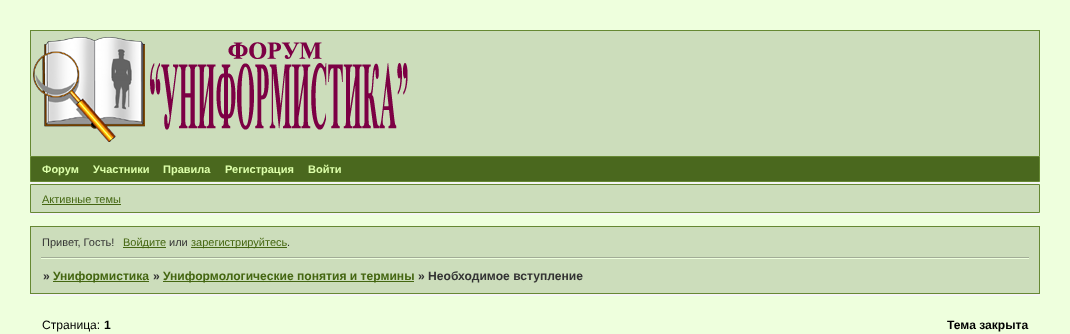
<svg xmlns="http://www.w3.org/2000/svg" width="1070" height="334">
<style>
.a{font:bold 11px Liberation Sans;fill:#dfa}
.b{font:11px Liberation Sans;fill:#461}
.c{font:11px Liberation Sans;fill:#333}
.d{font:bold 12.1px Liberation Sans;fill:#333}
.e{font:bold 12.1px Liberation Sans;fill:#461}
.f{font:12.1px Liberation Sans;fill:#000}
.g{font:bold 12.1px Liberation Sans;fill:#000}
</style>
<rect width="100%" height="100%" fill="#efd"/>
<path fill="#cdb" d="M31 31h1008v125H31z"/>
<path fill="#683" d="M30 30h1010v1H30z"/>
<path fill="#683" d="M1039 30h1v126H1039z"/>
<path fill="#683" d="M30 30h1v126H30z"/>
<image href="1.png" x="33" y="37" width="375" height="105"/>
<path fill="#f5f5f5" d="M30 182h1010v2H30z"/>
<path fill="#4a681e" stroke="#683" d="M30.5 156.5h1009v25H30.5z"/>
<path fill="#f5f5f5" d="M30 213h1010v2H30z"/>
<path fill="#cdb" stroke="#683" d="M30.5 184.5h1009v28H30.5z"/>
<path fill="#461" d="M42 204h79v1H42z"/>
<path fill="#cdb" d="M31 227h1008v66H31z"/>
<path fill="#683" d="M30 226h1010v1H30z"/>
<path fill="#683" d="M1039 226h1v68H1039z"/>
<path fill="#683" d="M30 226h1v33H30z"/>
<path fill="#461" d="M123 247h43v1H123z"/>
<path fill="#461" d="M191 247h96v1H191z"/>
<path fill="#a2ad97" d="M41 257h988v1H41z"/>
<path fill="#efd" d="M41 258h988v1H41z"/>
<path fill="#f5f5f5" d="M30 294h1010v2H30z"/>
<path fill="#683" d="M30 293h1010v1H30z"/>
<path fill="#683" d="M30 257h1v37H30z"/>
<path fill="#461" d="M53 281h96v1H53z"/>
<path fill="#461" d="M163 281h251v1H163z"/>
<text class="a" x="42" y="173">Форум</text>
<text class="a" x="93" y="173">Участники</text>
<text class="a" x="163" y="173">Правила</text>
<text class="a" x="225" y="173">Регистрация</text>
<text class="a" x="308" y="173">Войти</text>
<text class="b" x="42" y="203">Активные темы</text>
<text class="c" x="42" y="246">Привет, Гость!</text>
<text class="b" x="123" y="246">Войдите</text>
<text class="c" x="169" y="246">или</text>
<text class="b" x="191" y="246">зарегистрируйтесь</text>
<text class="c" x="287" y="246">.</text>
<text class="d" x="43" y="280">»</text>
<text class="e" x="53" y="280">Униформистика</text>
<text class="d" x="153" y="280">»</text>
<text class="e" x="163" y="280">Униформологические понятия и термины</text>
<text class="d" x="418" y="280">» Необходимое вступление</text>
<text class="f" x="42" y="329">Страница:</text>
<text class="g" x="104" y="329">1</text>
<text class="g" x="947" y="329">Тема закрыта</text>
</svg>
